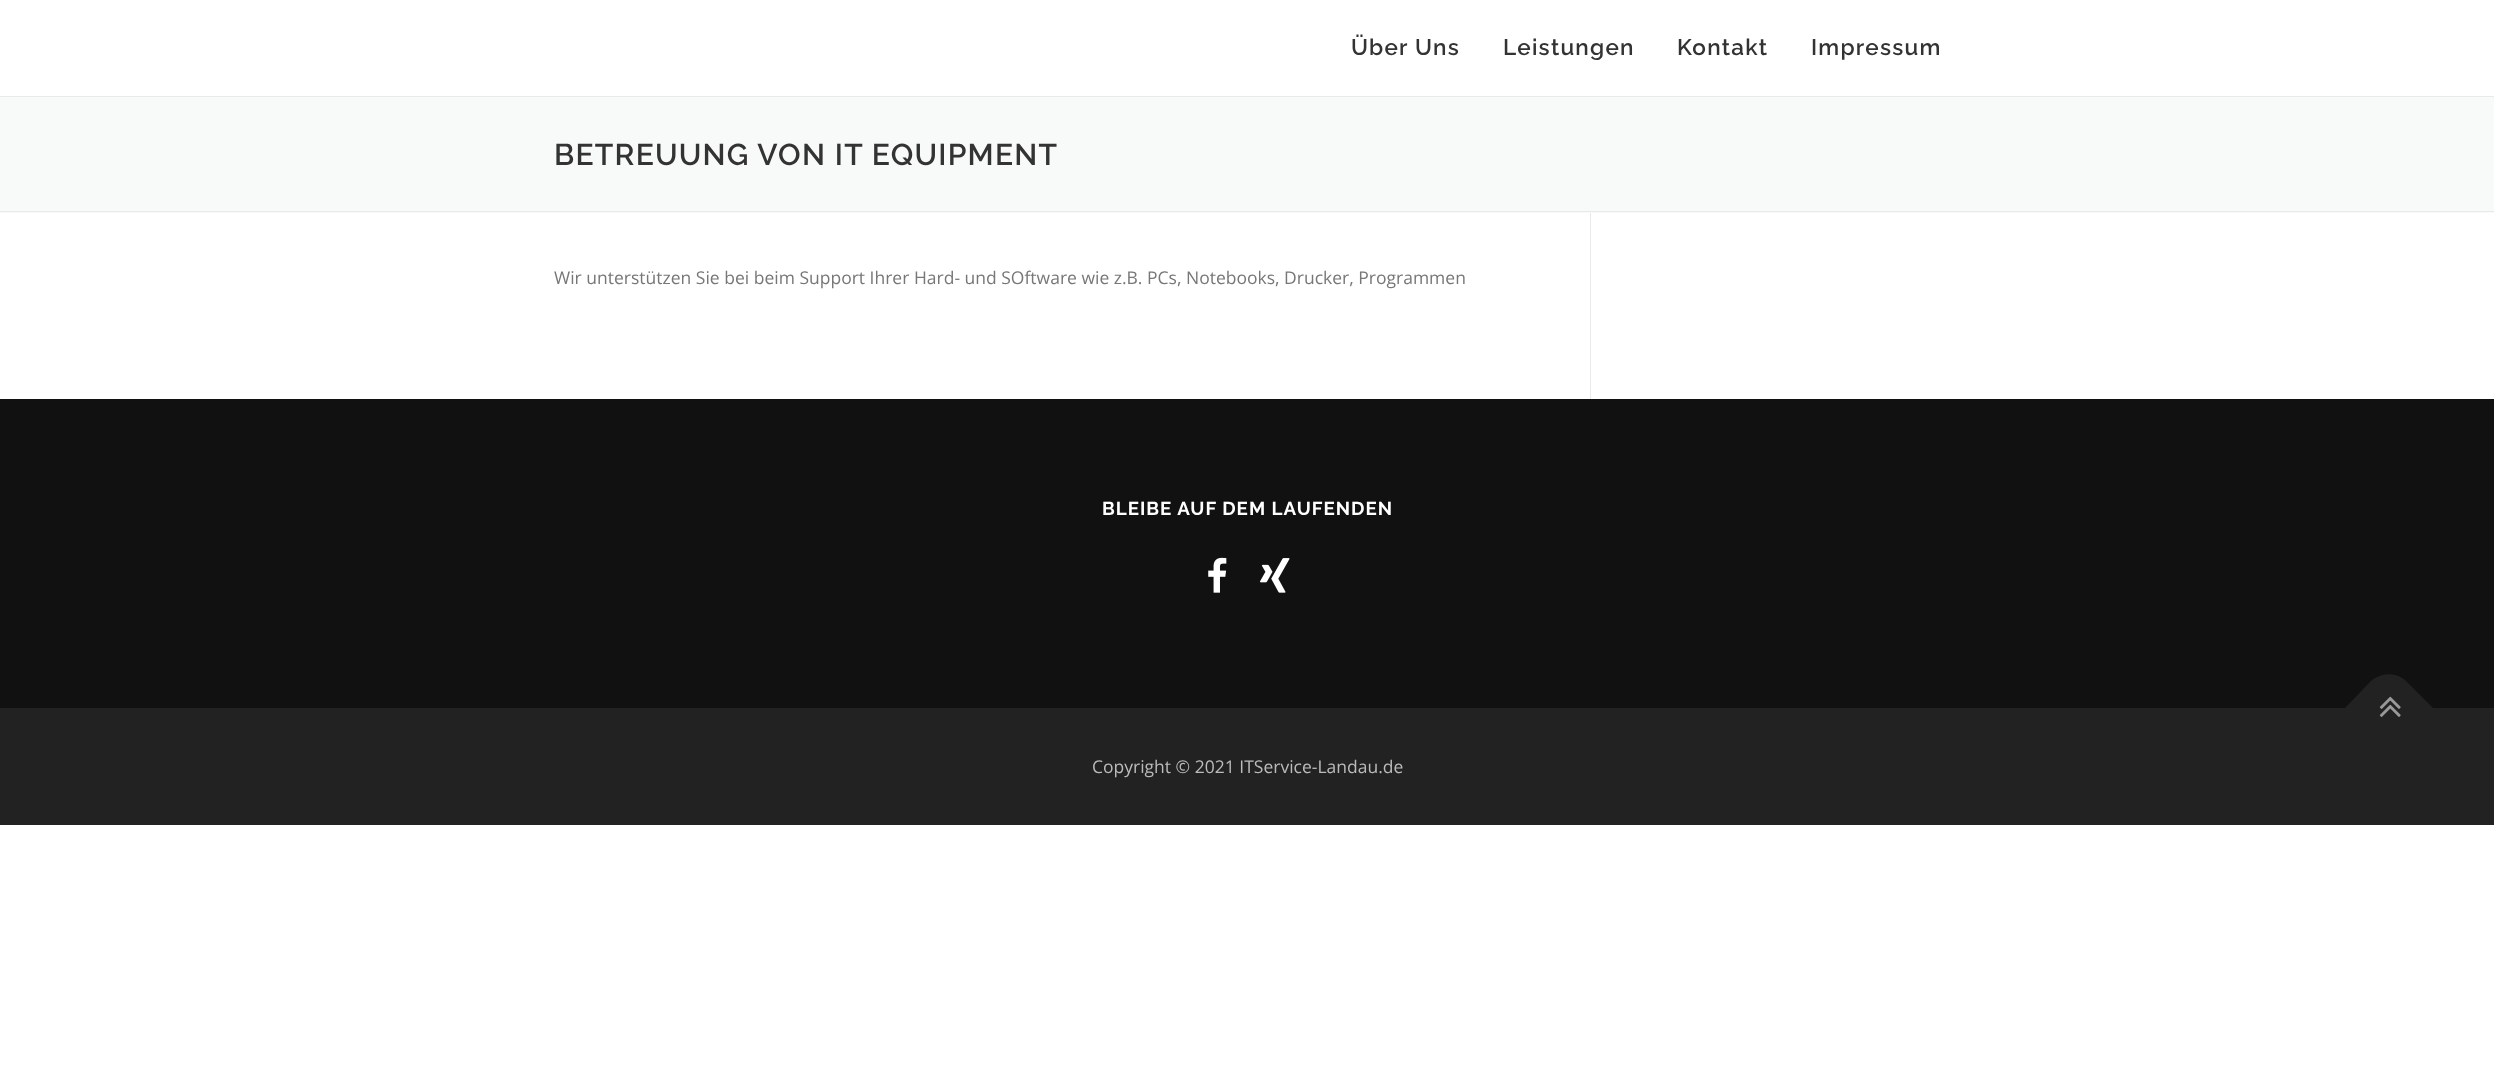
<svg xmlns="http://www.w3.org/2000/svg" width="2494" height="1067">
<style>
.a{font:600 22.5px Raleway;letter-spacing:1.25px;fill:#333}
.b{font:600 30px Raleway;letter-spacing:1.25px;fill:#333}
.c{font:17.5px Open Sans;fill:#777}
.d{font:bold 18.75px Raleway;letter-spacing:1px;fill:#fff}
.e{font:17.5px Open Sans;fill:#bbb}
</style>
<rect width="100%" height="100%" fill="#fff"/>
<path fill="#f8f9f9" d="M0 97h2494v116H0z"/>
<path fill="#e9e9e9" d="M0 96h2494v1H0z"/>
<path fill="#e9e9e9" d="M0 211h2494v1H0z"/>
<path fill="#e9e9e9" d="M1590 213h1v186H1590z"/>
<path fill="#111" d="M0 399h2494v309H0z"/>
<image href="1.png" x="1208" y="557" width="19" height="36"/>
<image href="2.png" x="1260" y="558" width="30" height="35"/>
<path fill="#222" d="M0 708h2494v117H0z"/>
<path fill="#222" d="M2345 708l26-27c10-9 26-9 35 0l27 27l-44 44z"/>
<image href="3.png" x="2379" y="696" width="22" height="21"/>
<text class="a" x="1351" y="55">Über Uns</text>
<text class="a" x="1503" y="55">Leistungen</text>
<text class="a" x="1677" y="55">Kontakt</text>
<text class="a" x="1811" y="55">Impressum</text>
<text class="b" x="554" y="165">BETREUUNG VON IT EQUIPMENT</text>
<text class="c" x="554" y="284">Wir unterstützen Sie bei beim Support Ihrer Hard- und SOftware wie z.B. PCs, Notebooks, Drucker, Programmen</text>
<text class="d" x="1102" y="515">BLEIBE AUF DEM LAUFENDEN</text>
<text class="e" x="1092" y="773">Copyright © 2021 ITService-Landau.de</text>
</svg>
